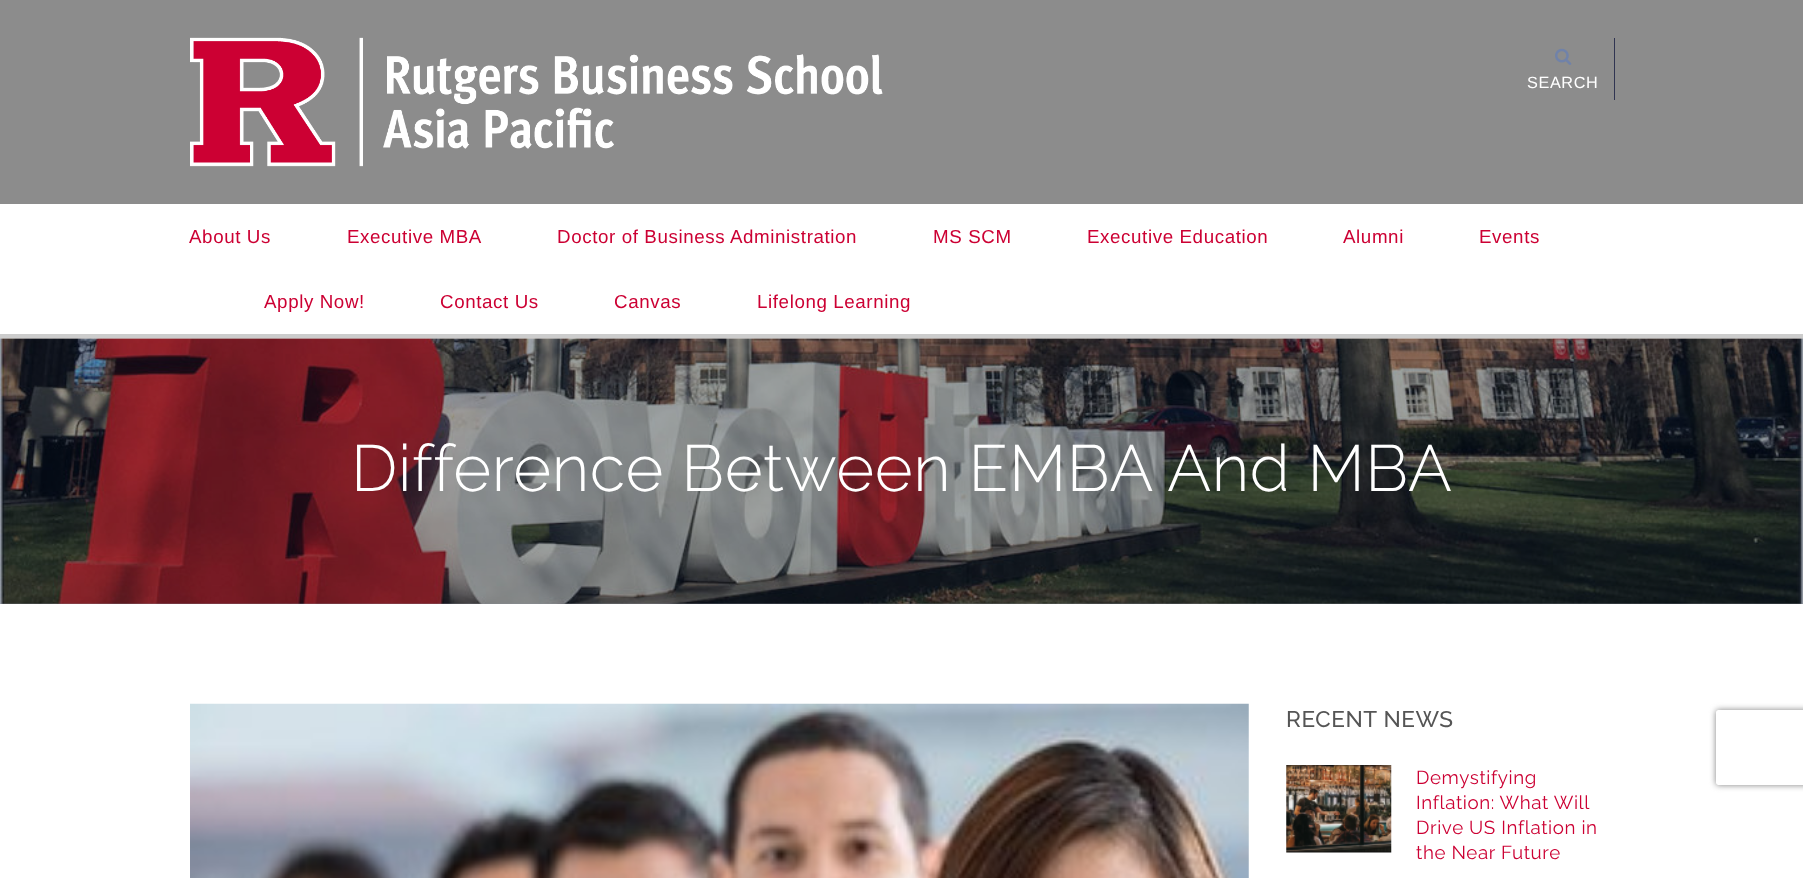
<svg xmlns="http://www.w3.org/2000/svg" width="1803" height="878">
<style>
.a{font:16.25px Liberation Sans;letter-spacing:0.6px;fill:#fff}
.b{font:18.75px Liberation Sans;letter-spacing:0.6px;fill:#c03}
.c{font:300 65px Raleway;letter-spacing:0.6px;fill:#fff}
.d{font:500 22.5px Raleway;letter-spacing:0.6px;fill:#555}
.e{font:18.75px Raleway;letter-spacing:0.6px;fill:#c03}
</style>
<defs>
<clipPath id="clip1"><path d="M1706 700h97v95h-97zm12.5 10h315c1.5 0 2.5 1 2.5 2.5v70c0 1.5-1 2.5-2.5 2.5h-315c-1.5 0-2.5-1-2.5-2.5v-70c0-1.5 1-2.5 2.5-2.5z" clip-rule="evenodd"/></clipPath>
</defs>
<rect width="100%" height="100%" fill="#fff"/>
<path fill="#8c8c8c" d="M0 0h1803v204H0z"/>
<image href="1.png" x="190" y="37" width="693" height="130"/>
<path fill="#303451" d="M1614 38h1v62H1614z"/>
<image href="2.png" x="1555" y="48" width="17" height="17"/>
<image href="3.png" x="0" y="338" width="1803" height="266"/>
<image href="4.png" x="0" y="338" width="1803" height="266"/>
<path fill="#00000033" d="M0 334h1803v5H0z"/>
<image href="5.png" x="190" y="703" width="1059" height="175"/>
<image href="6.png" x="1286" y="765" width="106" height="88"/>
<g clip-path="url(#clip1)">
<rect fill="#808080" filter="blur(3px)" x="1716" y="710" width="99" height="75" rx="2.5"/>
</g>
<text class="a" x="1527" y="88">SEARCH</text>
<text class="b" x="189" y="243">About Us</text>
<text class="b" x="347" y="243">Executive MBA</text>
<text class="b" x="557" y="243">Doctor of Business Administration</text>
<text class="b" x="933" y="243">MS SCM</text>
<text class="b" x="1087" y="243">Executive Education</text>
<text class="b" x="1343" y="243">Alumni</text>
<text class="b" x="1479" y="243">Events</text>
<text class="b" x="264" y="308">Apply Now!</text>
<text class="b" x="440" y="308">Contact Us</text>
<text class="b" x="614" y="308">Canvas</text>
<text class="b" x="757" y="308">Lifelong Learning</text>
<text class="c" x="351" y="491">Difference Between EMBA And MBA</text>
<text class="d" x="1286" y="727">RECENT NEWS</text>
<text class="e" x="1416" y="784">Demystifying</text>
<text class="e" x="1416" y="809">Inflation: What Will</text>
<text class="e" x="1416" y="834">Drive US Inflation in</text>
<text class="e" x="1416" y="859">the Near Future</text>
</svg>
